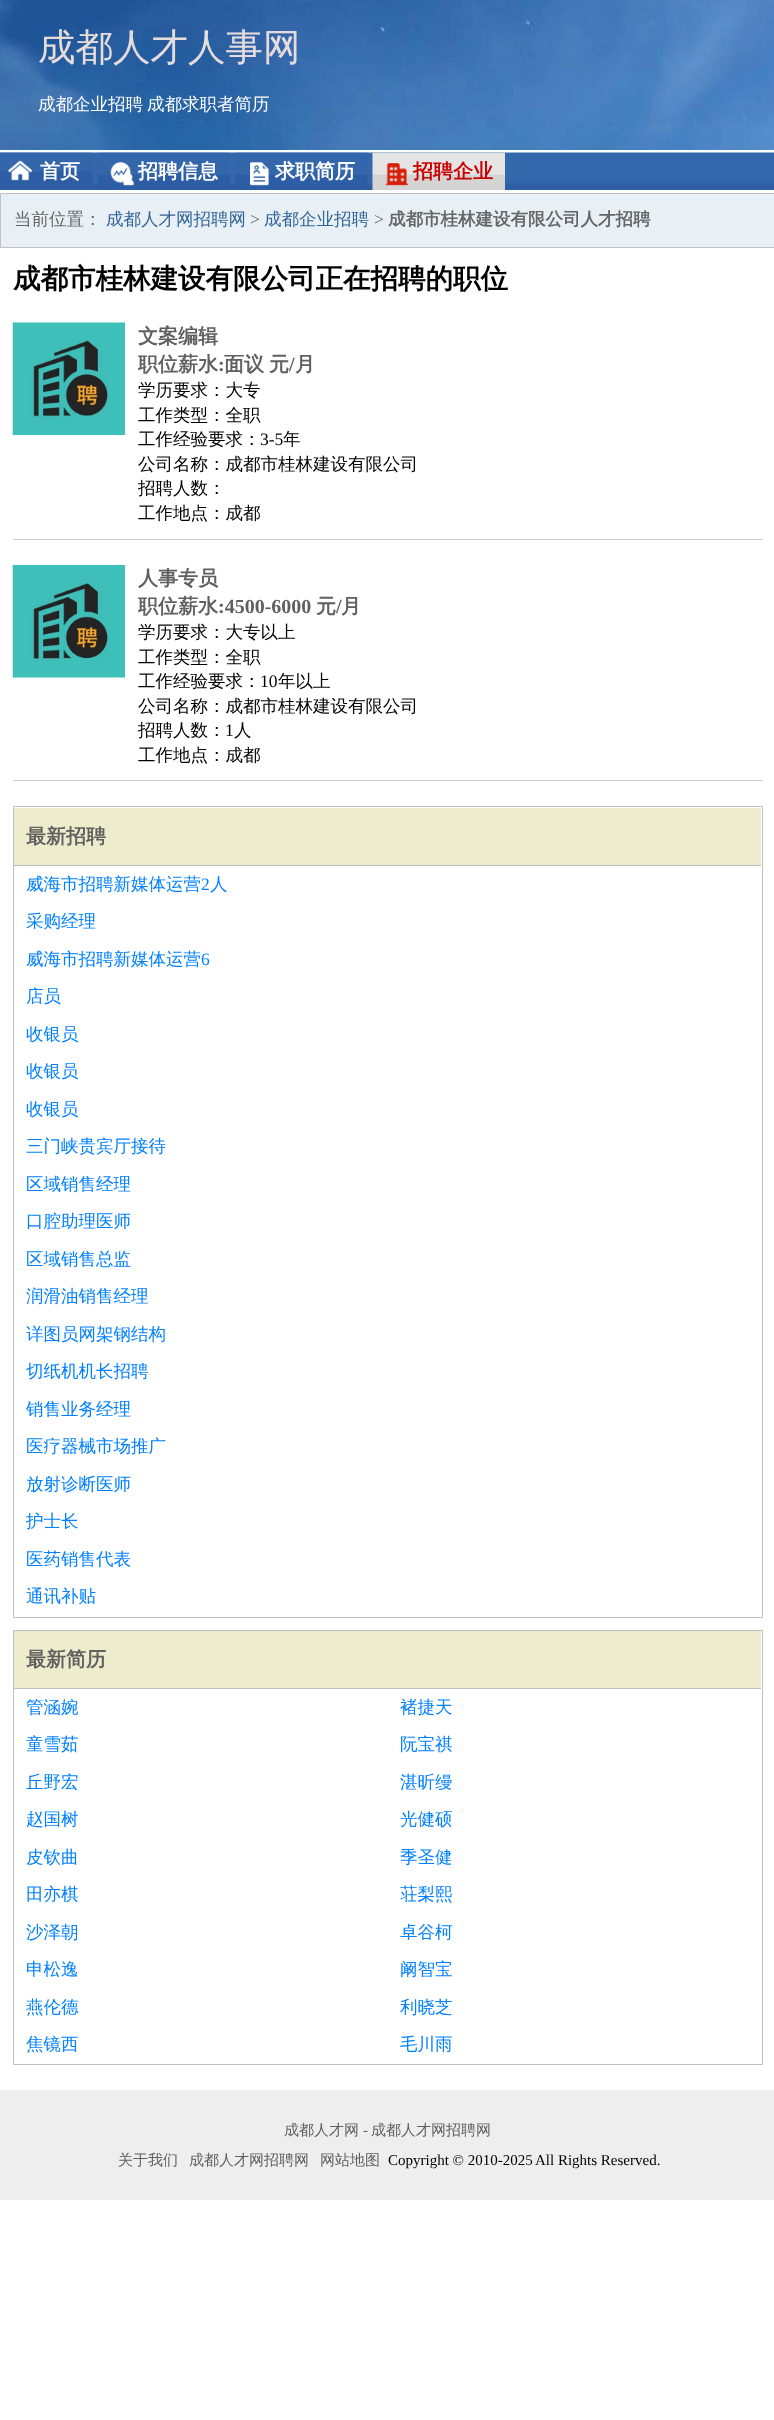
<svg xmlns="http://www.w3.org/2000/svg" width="774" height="2420">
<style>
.a{font:500 37.5px WenQuanYi Zen Hei;fill:#e6dcdc}
.b{font:500 17.5px WenQuanYi Zen Hei;fill:#fff}
.c{font:bold 20px WenQuanYi Zen Hei;fill:#fff}
.d{font:bold 20px WenQuanYi Zen Hei;fill:#c00}
.e{font:500 17.5px WenQuanYi Zen Hei;fill:#666}
.f{font:500 17.5px WenQuanYi Zen Hei;fill:#369}
.g{font:17.5px Liberation Serif;fill:#666}
.h{font:bold 17.5px WenQuanYi Zen Hei;fill:#666}
.i{font:bold 27.5px WenQuanYi Zen Hei;fill:#000}
.j{font:bold 20px WenQuanYi Zen Hei;fill:#606060}
.k{font:bold 20px Liberation Serif;fill:#606060}
.l{font:500 17.5px WenQuanYi Zen Hei;fill:#000}
.m{font:17.5px Liberation Serif;fill:#000}
.n{font:500 17.5px WenQuanYi Zen Hei;fill:#0080ff}
.o{font:17.5px Liberation Serif;fill:#0080ff}
.p{font:500 15px WenQuanYi Zen Hei;fill:#606060}
.q{font:15px Liberation Serif;fill:#606060}
.r{font:15px Liberation Serif;fill:#000}
</style>
<defs>
<clipPath id="clip1"><path d="M138 323h625v56H138z"/></clipPath>
<clipPath id="clip2"><path d="M138 453h625v73H138z"/></clipPath>
<clipPath id="clip3"><path d="M138 565h625v56H138z"/></clipPath>
<clipPath id="clip4"><path d="M138 694h625v74H138z"/></clipPath>
</defs>
<rect width="100%" height="100%" fill="#fff"/>
<image href="1.png" x="0" y="0" width="774" height="150"/>
<image href="2.png" x="0" y="152" width="774" height="38"/>
<image href="3.png" x="0" y="152" width="93" height="32"/>
<image href="4.png" x="97" y="152" width="133" height="34"/>
<image href="5.png" x="235" y="152" width="133" height="34"/>
<image href="6.png" x="372" y="152" width="133" height="38"/>
<path fill="#e8eff5" stroke="#c0c0c0" d="M0.5 193.5h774v54H0.5z"/>
<path fill="#ccc" d="M13 539h750v1H13z"/>
<image href="7.png" x="12" y="322" width="113" height="113"/>
<path fill="#ccc" d="M13 780h750v1H13z"/>
<image href="8.png" x="12" y="565" width="113" height="113"/>
<path fill="none" stroke="#c0c0c0" d="M13.5 806.5h749v811H13.5z"/>
<path fill="#ededcd" d="M14 808h747v57H14z"/>
<path fill="#c0c0c0" d="M14 865h747v1H14z"/>
<path fill="none" stroke="#c0c0c0" d="M13.5 1630.5h749v434H13.5z"/>
<path fill="#ededcd" d="M14 1631h747v57H14z"/>
<path fill="#c0c0c0" d="M14 1688h747v1H14z"/>
<path fill="#eee" d="M0 2090h774v110H0z"/>
<text class="a" x="38" y="60">成都人才人事网</text>
<text class="b" x="38" y="110">成都企业招聘</text>
<text class="b" x="147" y="110">成都求职者简历</text>
<text class="c" x="40" y="178">首页</text>
<text class="c" x="138" y="178">招聘信息</text>
<text class="c" x="275" y="178">求职简历</text>
<text class="d" x="413" y="178">招聘企业</text>
<text class="e" x="14" y="225">当前位置：</text>
<text class="f" x="106" y="225">成都人才网招聘网</text>
<text class="g" x="250" y="225">&gt;</text>
<text class="f" x="264" y="225">成都企业招聘</text>
<text class="g" x="374" y="225">&gt;</text>
<text class="h" x="388" y="225">成都市桂林建设有限公司人才招聘</text>
<text class="i" x="13" y="288">成都市桂林建设有限公司正在招聘的职位</text>
<text class="j" x="138" y="343">文案编辑</text>
<g clip-path="url(#clip1)">
<text class="j" x="138" y="371">职位薪水</text>
</g>
<text class="k" x="218" y="371">:</text>
<text class="j" x="224" y="371" word-spacing="-1">面议 元</text>
<text class="k" x="289" y="371">/</text>
<text class="j" x="295" y="371">月</text>
<text class="l" x="138" y="396">学历要求：大专</text>
<text class="l" x="138" y="421">工作类型：全职</text>
<text class="l" x="138" y="445">工作经验要求：</text>
<text class="m" x="260" y="445">3-5</text>
<text class="l" x="283" y="445">年</text>
<text class="l" x="138" y="470">公司名称：成都市桂林建设有限公司</text>
<g clip-path="url(#clip2)">
<text class="l" x="138" y="494">招聘人数：</text>
</g>
<text class="l" x="138" y="519">工作地点：成都</text>
<text class="j" x="138" y="585">人事专员</text>
<g clip-path="url(#clip3)">
<text class="j" x="138" y="613">职位薪水</text>
</g>
<text class="k" x="218" y="613">:4500-6000</text>
<text class="j" x="316" y="613">元</text>
<text class="k" x="336" y="613">/</text>
<text class="j" x="341" y="613">月</text>
<text class="l" x="138" y="638">学历要求：大专以上</text>
<text class="l" x="138" y="663">工作类型：全职</text>
<text class="l" x="138" y="687">工作经验要求：</text>
<text class="m" x="260" y="687">10</text>
<text class="l" x="278" y="687">年以上</text>
<text class="l" x="138" y="712">公司名称：成都市桂林建设有限公司</text>
<g clip-path="url(#clip4)">
<text class="l" x="138" y="736">招聘人数：</text>
</g>
<text class="m" x="225" y="736">1</text>
<text class="l" x="234" y="736">人</text>
<text class="l" x="138" y="761">工作地点：成都</text>
<text class="j" x="26" y="843">最新招聘</text>
<text class="n" x="26" y="890">威海市招聘新媒体运营</text>
<text class="o" x="201" y="890">2</text>
<text class="n" x="210" y="890">人</text>
<text class="n" x="26" y="927">采购经理</text>
<text class="n" x="26" y="965">威海市招聘新媒体运营</text>
<text class="o" x="201" y="965">6</text>
<text class="n" x="26" y="1002">店员</text>
<text class="n" x="26" y="1040">收银员</text>
<text class="n" x="26" y="1077">收银员</text>
<text class="n" x="26" y="1115">收银员</text>
<text class="n" x="26" y="1152">三门峡贵宾厅接待</text>
<text class="n" x="26" y="1190">区域销售经理</text>
<text class="n" x="26" y="1227">口腔助理医师</text>
<text class="n" x="26" y="1265">区域销售总监</text>
<text class="n" x="26" y="1302">润滑油销售经理</text>
<text class="n" x="26" y="1340">详图员网架钢结构</text>
<text class="n" x="26" y="1377">切纸机机长招聘</text>
<text class="n" x="26" y="1415">销售业务经理</text>
<text class="n" x="26" y="1452">医疗器械市场推广</text>
<text class="n" x="26" y="1490">放射诊断医师</text>
<text class="n" x="26" y="1527">护士长</text>
<text class="n" x="26" y="1565">医药销售代表</text>
<text class="n" x="26" y="1602">通讯补贴</text>
<text class="j" x="26" y="1666">最新简历</text>
<text class="n" x="26" y="1713">管涵婉</text>
<text class="n" x="400" y="1713">褚捷天</text>
<text class="n" x="26" y="1750">童雪茹</text>
<text class="n" x="400" y="1750">阮宝祺</text>
<text class="n" x="26" y="1788">丘野宏</text>
<text class="n" x="400" y="1788">湛昕缦</text>
<text class="n" x="26" y="1825">赵国树</text>
<text class="n" x="400" y="1825">光健硕</text>
<text class="n" x="26" y="1863">皮钦曲</text>
<text class="n" x="400" y="1863">季圣健</text>
<text class="n" x="26" y="1900">田亦棋</text>
<text class="n" x="400" y="1900">荘梨熙</text>
<text class="n" x="26" y="1938">沙泽朝</text>
<text class="n" x="400" y="1938">卓谷柯</text>
<text class="n" x="26" y="1975">申松逸</text>
<text class="n" x="400" y="1975">阚智宝</text>
<text class="n" x="26" y="2013">燕伦德</text>
<text class="n" x="400" y="2013">利晓芝</text>
<text class="n" x="26" y="2050">焦镜西</text>
<text class="n" x="400" y="2050">毛川雨</text>
<text class="p" x="284" y="2135">成都人才网</text>
<text class="q" x="363" y="2135">-</text>
<text class="p" x="371" y="2135">成都人才网招聘网</text>
<text class="p" x="118" y="2165">关于我们</text>
<text class="p" x="189" y="2165">成都人才网招聘网</text>
<text class="p" x="320" y="2165">网站地图</text>
<text class="r" x="388" y="2165">Copyright © 2010-2025</text>
<text class="r" x="535" y="2165">All Rights Reserved.</text>
</svg>
